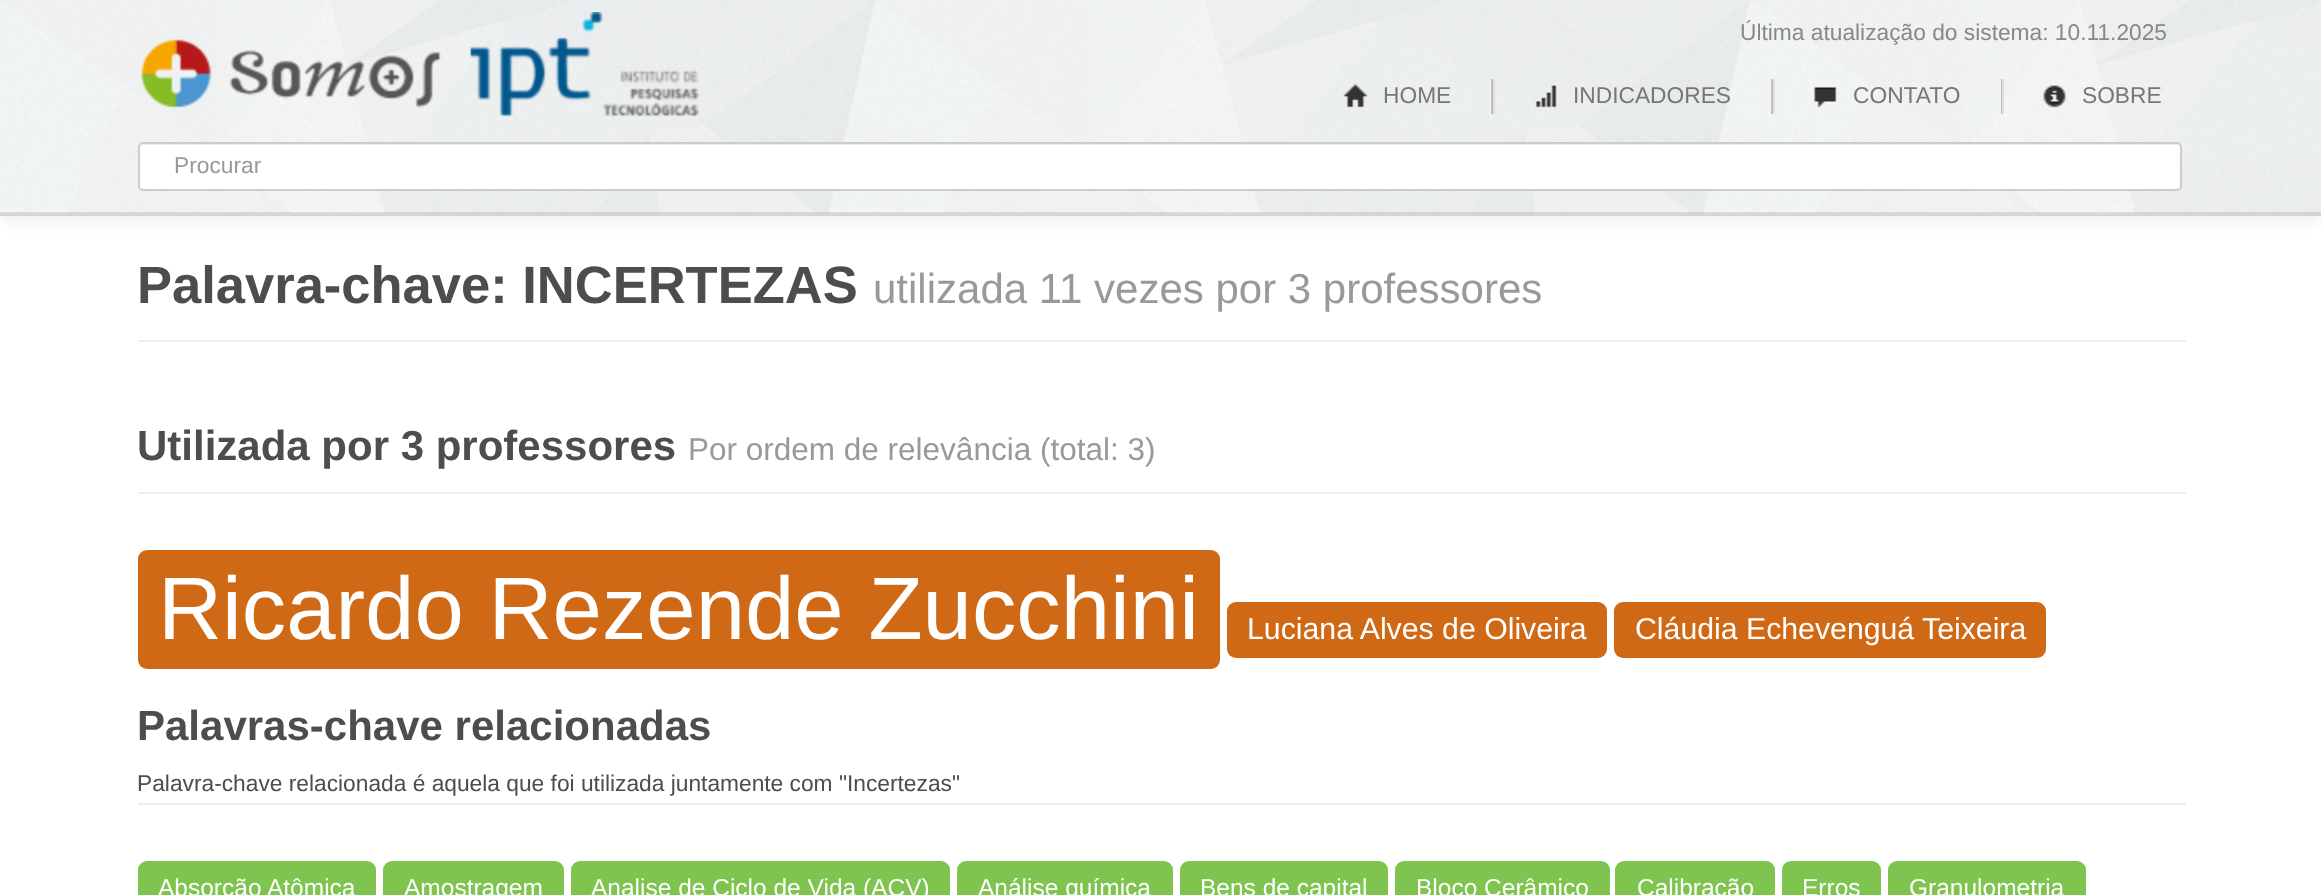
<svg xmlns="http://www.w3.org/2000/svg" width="2321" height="895">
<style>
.a{font:22.75px Liberation Sans;fill:#888}
.b{font:22.75px Liberation Sans;fill:#777}
.c{font:22.75px Liberation Sans;fill:#999}
.d{font:bold 52.5px Liberation Sans;fill:#4d4d4d}
.e{font:42px Liberation Sans;fill:#999}
.f{font:bold 42px Liberation Sans;fill:#4d4d4d}
.g{font:31.5px Liberation Sans;fill:#999}
.h{font:88.75px Liberation Sans;fill:#fff}
.i{font:30.25px Liberation Sans;fill:#fff}
.j{font:22.75px Liberation Sans;fill:#4d4d4d}
.k{font:24.5px Liberation Sans;fill:#fff}
</style>
<rect width="100%" height="100%" fill="#fff"/>
<path fill="#0000001a" filter="blur(9px)" d="M0 2h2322v215H0z"/>
<image href="1.png" x="0" y="0" width="2321" height="214"/>
<path fill="#0000001a" d="M0 212h2321v2H0z"/>
<path fill="#d4d4d4" d="M0 214h2321v2H0z"/>
<image href="2.png" x="470" y="12" width="229" height="105"/>
<image href="3.png" x="141" y="39" width="300" height="69"/>
<image href="4.png" x="1343" y="84" width="25" height="24"/>
<path fill="#bfbfbf" d="M1491 79h2v35H1491z"/>
<path fill="#dfdfdf" d="M1493 79h2v35H1493z"/>
<path fill="#f2f2f2" d="M1489 79h2v35H1489z"/>
<image href="5.png" x="1535" y="85" width="22" height="23"/>
<path fill="#bfbfbf" d="M1771 79h2v35H1771z"/>
<path fill="#dfdfdf" d="M1773 79h2v35H1773z"/>
<path fill="#f2f2f2" d="M1769 79h2v35H1769z"/>
<image href="6.png" x="1814" y="87" width="23" height="21"/>
<path fill="#bfbfbf" d="M2001 79h1v35H2001z"/>
<path fill="#dfdfdf" d="M2002 79h2v35H2002z"/>
<path fill="#f2f2f2" d="M1999 79h2v24H1999z"/>
<image href="7.png" x="2043" y="85" width="24" height="23"/>
<rect fill="#fff" x="138" y="142" width="2044" height="49" rx="5"/>
<path fill="#ececec" d="M144 145h2033c2 0 3 2 3 4v39c1-1 1-2 1-3v-37c0-2-2-4-4-4h-2033c-2 0-4 2-4 4v1c0-2 2-4 4-4z"/>
<rect fill="none" stroke="#ccc" stroke-width="2" x="139" y="143" width="2042" height="47" rx="4"/>
<path fill="#eee" d="M138 340h2048v2H138z"/>
<path fill="#eee" d="M138 492h2048v2H138z"/>
<rect fill="#d06916" x="138" y="550" width="1082" height="119" rx="9"/>
<rect fill="#d06916" x="1227" y="602" width="380" height="56" rx="9"/>
<rect fill="#d06916" x="1614" y="602" width="432" height="56" rx="9"/>
<path fill="#eee" d="M138 803h2048v2H138z"/>
<rect fill="#7ec44e" x="138" y="861" width="238" height="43" rx="9"/>
<rect fill="#7ec44e" x="383" y="861" width="181" height="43" rx="9"/>
<rect fill="#7ec44e" x="571" y="861" width="379" height="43" rx="9"/>
<rect fill="#7ec44e" x="957" y="861" width="216" height="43" rx="9"/>
<rect fill="#7ec44e" x="1180" y="861" width="208" height="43" rx="9"/>
<rect fill="#7ec44e" x="1395" y="861" width="215" height="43" rx="9"/>
<rect fill="#7ec44e" x="1615" y="861" width="160" height="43" rx="9"/>
<rect fill="#7ec44e" x="1782" y="861" width="99" height="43" rx="9"/>
<rect fill="#7ec44e" x="1888" y="861" width="198" height="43" rx="9"/>
<text class="a" x="1740" y="40">Última atualização do sistema: 10.11.2025</text>
<text class="b" x="1383" y="103">HOME</text>
<text class="b" x="1573" y="103">INDICADORES</text>
<text class="b" x="1853" y="103">CONTATO</text>
<text class="b" x="2082" y="103">SOBRE</text>
<text class="c" x="174" y="173">Procurar</text>
<text class="d" x="137" y="303">Palavra-chave: INCERTEZAS</text>
<text class="e" x="873" y="303">utilizada 11 vezes por 3 professores</text>
<text class="f" x="137" y="460">Utilizada por 3 professores</text>
<text class="g" x="688" y="460">Por ordem de relevância (total: 3)</text>
<text class="h" x="158" y="639">Ricardo Rezende Zucchini</text>
<text class="i" x="1247" y="639">Luciana Alves de Oliveira</text>
<text class="i" x="1635" y="639">Cláudia Echevenguá Teixeira</text>
<text class="f" x="137" y="740">Palavras-chave relacionadas</text>
<text class="j" x="137" y="791">Palavra-chave relacionada é aquela que foi utilizada juntamente com "Incertezas"</text>
<text class="k" x="158" y="896">Absorção Atômica</text>
<text class="k" x="404" y="896">Amostragem</text>
<text class="k" x="591" y="896">Analise de Ciclo de Vida (ACV)</text>
<text class="k" x="978" y="896">Análise química</text>
<text class="k" x="1200" y="896">Bens de capital</text>
<text class="k" x="1416" y="896">Bloco Cerâmico</text>
<text class="k" x="1637" y="896">Calibração</text>
<text class="k" x="1802" y="896">Erros</text>
<text class="k" x="1909" y="896">Granulometria</text>
</svg>
